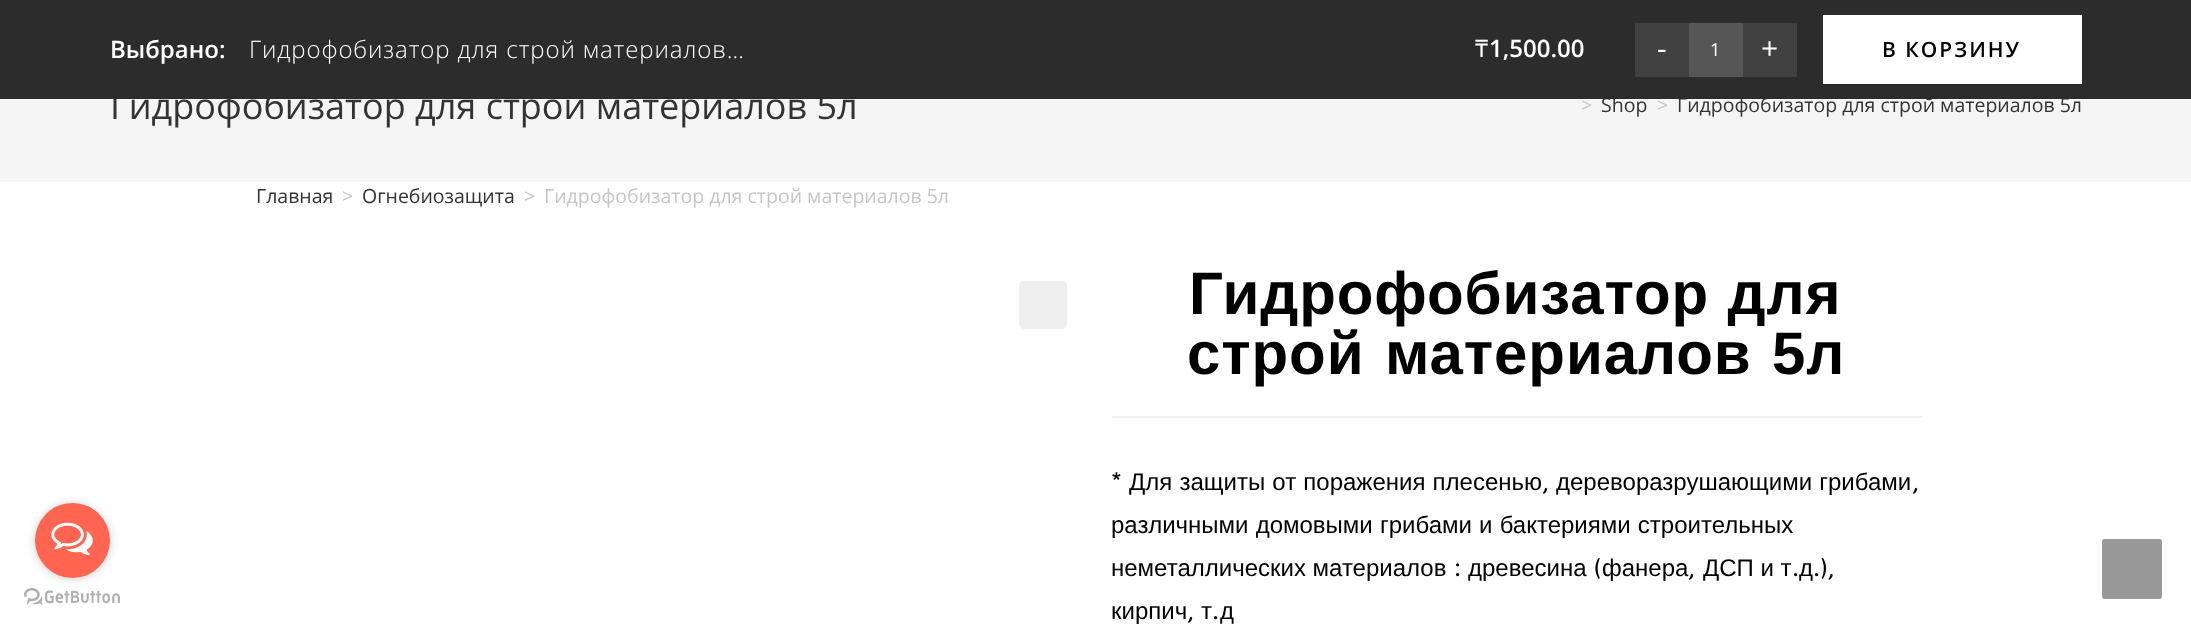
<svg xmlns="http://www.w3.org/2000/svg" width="2191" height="628">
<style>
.a{font:36px Open Sans;fill:#333}
.b{font:19.5px Open Sans;fill:#c6c6c6}
.c{font:19.5px Open Sans;fill:#333}
.d{font:30px Open Sans;fill:#fff}
.e{font:18px Open Sans;fill:#fff}
.f{font:600 21px Open Sans;letter-spacing:2px;fill:#000}
.g{font:600 24px Open Sans;fill:#fff}
.h{font:24px Noto Sans;fill:#fff}
.i{font:300 24px Open Sans;letter-spacing:0.9px;fill:#fff}
.j{font:bold 60px Liberation Sans;letter-spacing:0.9px;fill:#000}
.k{font:24px ABeeZee;fill:#000}
.l{font:24px Liberation Sans;fill:#000}
</style>
<rect width="100%" height="100%" fill="#fff"/>
<image href="2.png" x="24" y="588" width="96" height="17"/>
<rect fill="#88888866" filter="blur(5px)" x="35" y="504" width="75" height="75" rx="37.5"/>
<circle fill="#ff6550" cx="72.5" cy="540.5" r="37.5"/>
<image href="1.png" x="51" y="522" width="42" height="34"/>
<path fill="#f5f5f5" d="M0 99h2191v83H0z"/>
<rect fill="#eee" x="1019" y="281" width="48" height="48" rx="5"/>
<path fill="#f1f1f1" d="M1112 416h810v2H1112z"/>
<rect fill="#999" x="2102" y="539" width="60" height="60" rx="3"/>
<text class="a" x="110" y="119">Гидрофобизатор для строй материалов 5л</text>
<text class="b" x="1581" y="112">&gt;</text>
<text class="c" x="1601" y="112">Shop</text>
<text class="b" x="1657" y="112">&gt;</text>
<text class="c" x="1677" y="112">Гидрофобизатор для строй материалов 5л</text>
<path fill="#2c2c2c" d="M0 0h2191v99H0z"/>
<path fill="#414141" d="M1743 23h54v54H1743z"/>
<text class="d" x="1761" y="59">+</text>
<path fill="#565656" d="M1689 23h54v54H1689z"/>
<text class="e" x="1710" y="56">1</text>
<path fill="#414141" d="M1635 23h54v54H1635z"/>
<text class="d" x="1657" y="59">-</text>
<path fill="#fff" d="M1823 15h259v69H1823z"/>
<text class="f" x="1882" y="57">В КОРЗИНУ</text>
<text class="g" x="1489" y="57">1,500.00</text>
<text class="h" x="1475" y="57">₸</text>
<text class="i" x="249" y="58">Гидрофобизатор для строй материалов…</text>
<text class="g" x="110" y="58">Выбрано:</text>
<text class="c" x="256" y="203">Главная</text>
<text class="b" x="342" y="203">&gt;</text>
<text class="c" x="362" y="203">Огнебиозащита</text>
<text class="b" x="524" y="203">&gt;</text>
<text class="b" x="544" y="203">Гидрофобизатор для строй материалов 5л</text>
<text class="j" x="1189" y="314" word-spacing="1">Гидрофобизатор для</text>
<text class="j" x="1187" y="374" word-spacing="3">строй материалов 5л</text>
<text class="k" x="1111" y="490">*</text>
<text class="l" x="1129" y="490" word-spacing="0.5">Для защиты от поражения плесенью</text>
<text class="k" x="1542" y="490">,</text>
<text class="l" x="1556" y="490" word-spacing="0.5">дереворазрушающими грибами</text>
<text class="k" x="1912" y="490">,</text>
<text class="l" x="1111" y="533" word-spacing="0.5">различными домовыми грибами и бактериями строительных</text>
<text class="l" x="1111" y="576">неметаллических материалов</text>
<text class="k" x="1454" y="576">:</text>
<text class="l" x="1468" y="576">древесина</text>
<text class="k" x="1594" y="576">(</text>
<text class="l" x="1602" y="576">фанера</text>
<text class="k" x="1688" y="576">,</text>
<text class="l" x="1703" y="576">ДСП и т</text>
<text class="k" x="1792" y="576">.</text>
<text class="l" x="1799" y="576">д</text>
<text class="k" x="1813" y="576">.),</text>
<text class="l" x="1111" y="619">кирпич</text>
<text class="k" x="1187" y="619">,</text>
<text class="l" x="1201" y="619">т</text>
<text class="k" x="1212" y="619">.</text>
<text class="l" x="1220" y="619">д</text>
</svg>
